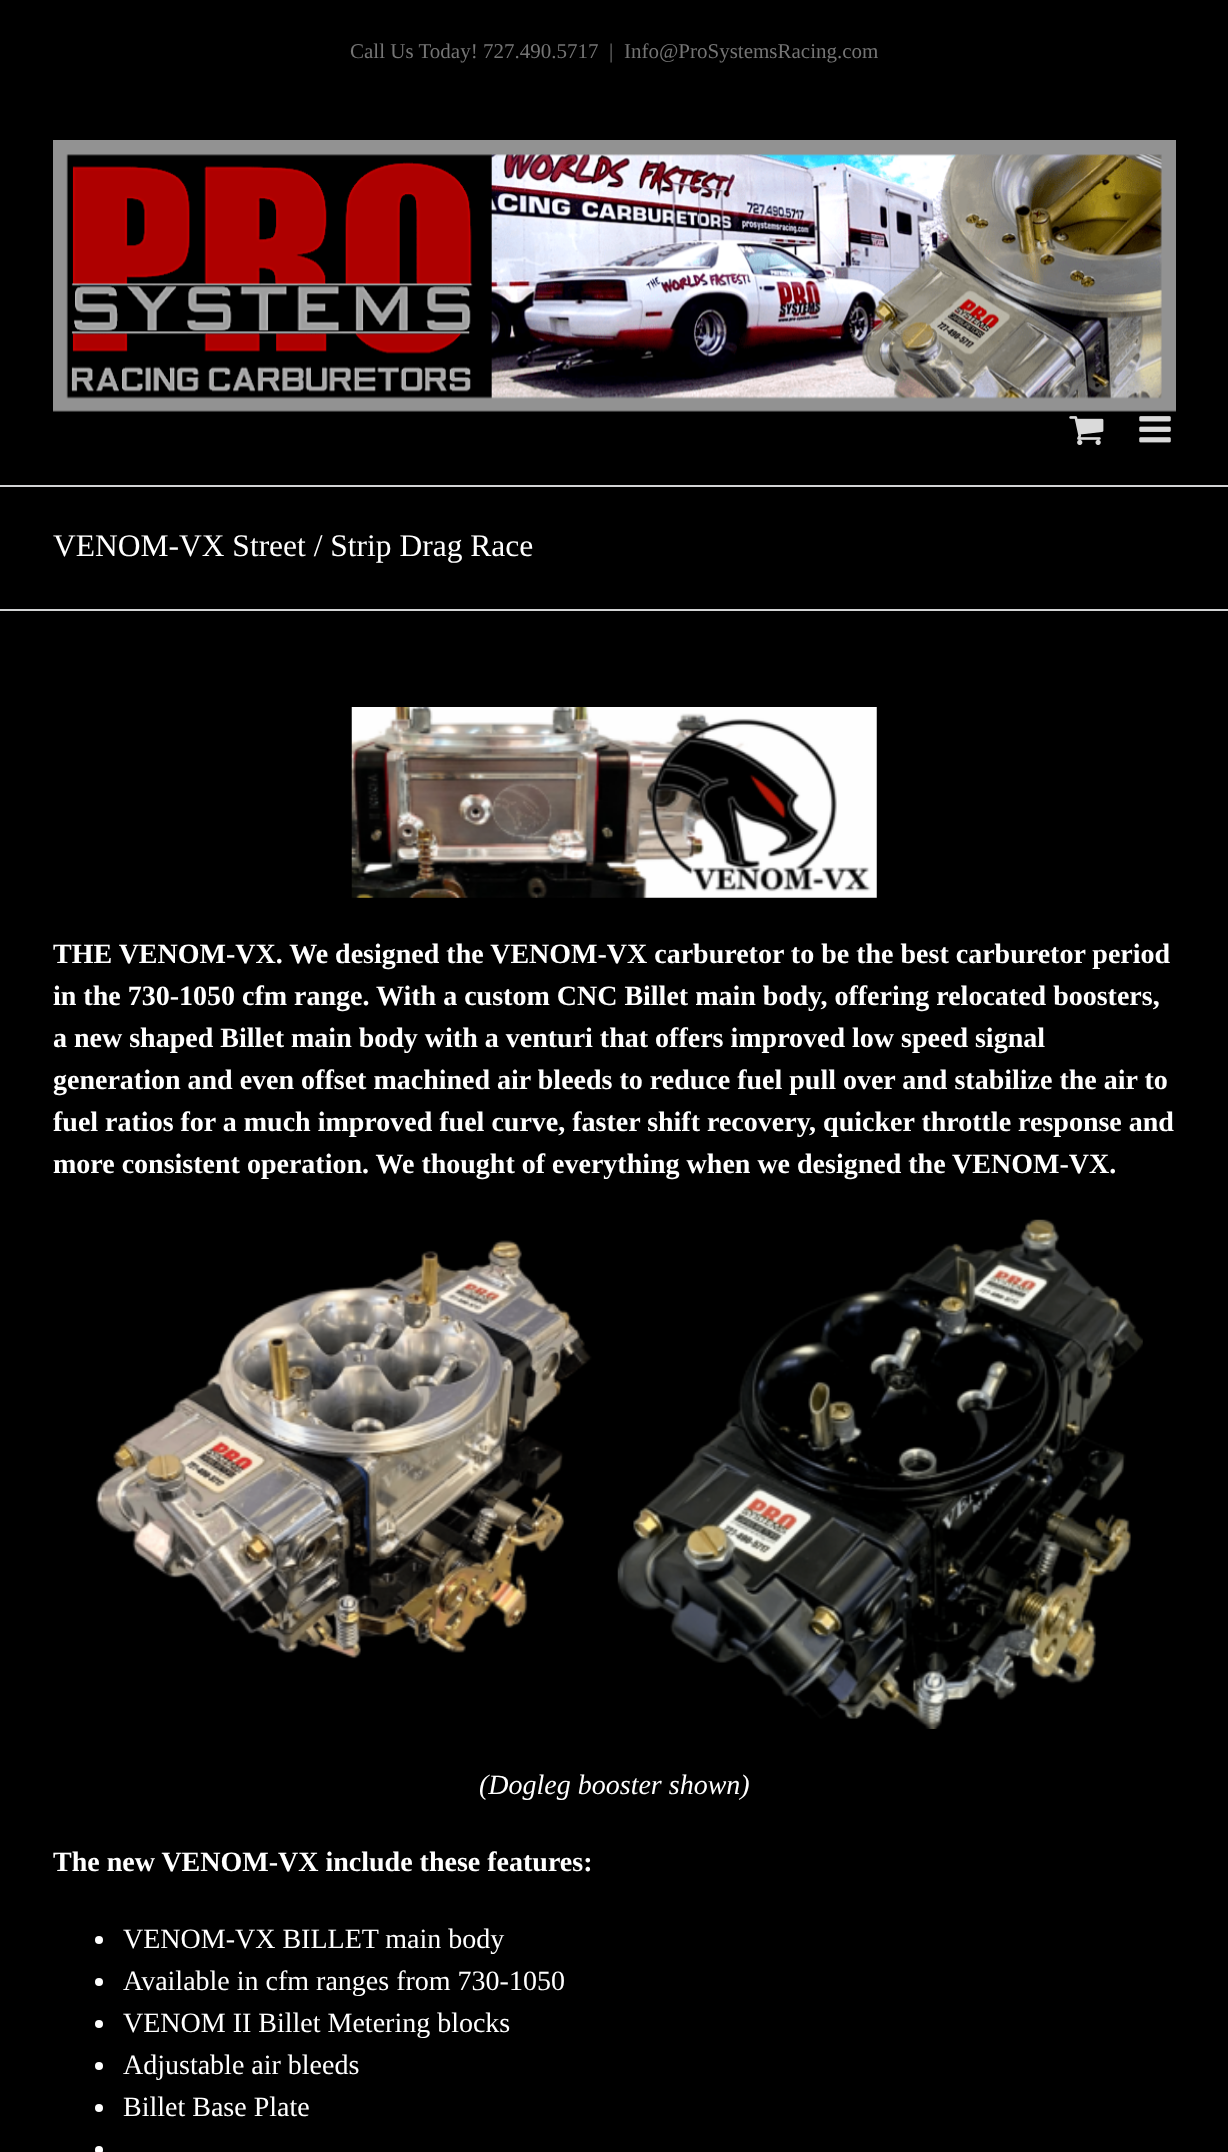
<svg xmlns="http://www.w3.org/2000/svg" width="1228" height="2152">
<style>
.a{font:21px Liberation Serif;fill:#747474}
.b{font:31.5px Liberation Serif;fill:#fff}
.c{font:bold 28px Liberation Serif;fill:#fff}
.d{font:italic 28px Liberation Serif;fill:#fff}
.e{font:28px Liberation Serif;fill:#fff}
</style>
<rect width="100%" height="100%" fill="#000"/>
<image href="1.png" x="53" y="140" width="1123" height="272"/>
<image href="2.png" x="1069" y="416" width="35" height="29"/>
<image href="3.png" x="1139" y="416" width="32" height="27"/>
<path fill="#d2d3d4" d="M0 485h1228v2H0z"/>
<path fill="#d2d3d4" d="M0 609h1228v2H0z"/>
<image href="4.png" x="351" y="707" width="526" height="191"/>
<image href="5.png" x="96" y="1240" width="496" height="419"/>
<image href="6.png" x="617" y="1219" width="526" height="510"/>
<circle fill="#fff" cx="99" cy="1940" r="4"/>
<circle fill="#fff" cx="99" cy="1982" r="4"/>
<circle fill="#fff" cx="99" cy="2024" r="4"/>
<circle fill="#fff" cx="99" cy="2066" r="4"/>
<circle fill="#fff" cx="99" cy="2108" r="4"/>
<circle fill="#fff" cx="99" cy="2150" r="4"/>
<text class="a" x="350" y="58">Call Us Today! 727.490.5717</text>
<text class="a" x="609" y="58">|</text>
<text class="a" x="624" y="58">Info@ProSystemsRacing.com</text>
<text class="b" x="53" y="556">VENOM-VX Street / Strip Drag Race</text>
<text class="c" x="53" y="963">THE VENOM-VX. We designed the VENOM-VX carburetor to be the best carburetor period</text>
<text class="c" x="53" y="1005">in the 730-1050 cfm range. With a custom CNC Billet main body, offering relocated boosters,</text>
<text class="c" x="53" y="1047">a new shaped Billet main body with a venturi that offers improved low speed signal</text>
<text class="c" x="53" y="1089">generation and even offset machined air bleeds to reduce fuel pull over and stabilize the air to</text>
<text class="c" x="53" y="1131">fuel ratios for a much improved fuel curve, faster shift recovery, quicker throttle response and</text>
<text class="c" x="53" y="1173">more consistent operation. We thought of everything when we designed the VENOM-VX.</text>
<text class="d" x="479" y="1794">(Dogleg booster shown)</text>
<text class="c" x="53" y="1871">The new VENOM-VX include these features:</text>
<text class="e" x="123" y="1948">VENOM-VX BILLET main body</text>
<text class="e" x="123" y="1990">Available in cfm ranges from 730-1050</text>
<text class="e" x="123" y="2032">VENOM II Billet Metering blocks</text>
<text class="e" x="123" y="2074">Adjustable air bleeds</text>
<text class="e" x="123" y="2116">Billet Base Plate</text>
</svg>
